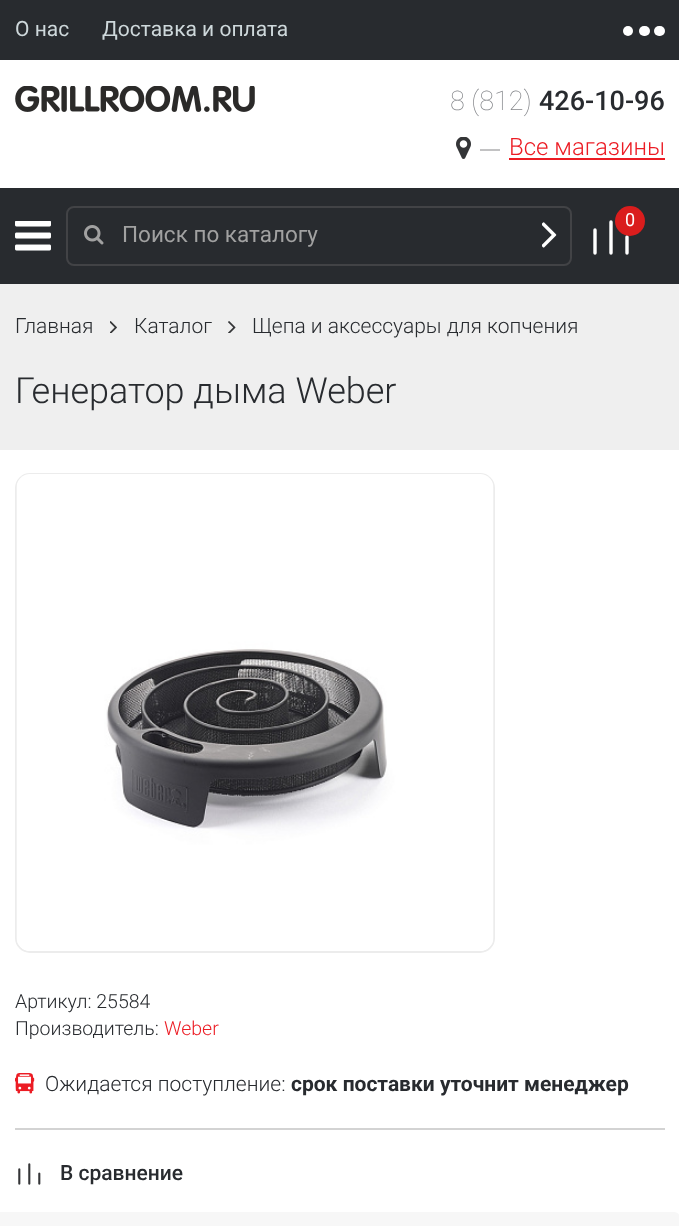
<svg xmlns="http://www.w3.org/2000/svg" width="679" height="1226">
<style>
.a{font:21px Roboto;fill:#ced8db}
.b{font:100 27px Roboto;fill:#84868a}
.c{font:500 27px Roboto;fill:#282b2f}
.d{font:300 24px Roboto;fill:#ec1c24}
.e{font:22.5px Roboto;fill:#a1a1a1}
.f{font:18px Roboto;fill:#fff}
.g{font:300 21px Roboto;fill:#282b2f}
.h{font:300 36px Roboto;fill:#282b2f}
.i{font:300 19.5px Roboto;fill:#282b2f}
.j{font:300 19.5px Roboto;fill:#ec1c24}
.k{font:bold 21px Roboto;fill:#282b2f}
.l{font:500 21px Roboto;fill:#282b2f}
</style>
<rect width="100%" height="100%" fill="#efefef"/>
<path fill="#282b2f" d="M0 0h679v60H0z"/>
<circle fill="#fff" cx="628" cy="31" r="5"/>
<rect fill="#fff" x="639" y="26" width="11" height="10" rx="5"/>
<rect fill="#fff" x="654" y="26" width="11" height="10" rx="5"/>
<path fill="#fff" d="M0 60h679v128H0z"/>
<image href="1.png" x="15" y="86" width="240" height="26"/>
<image href="2.png" x="456" y="137" width="15" height="22"/>
<path fill="#c2c2c3" d="M480 149h20v2H480z"/>
<path fill="#ec1c24" d="M509 158h156v2H509z"/>
<path fill="#282b2f" d="M0 188h679v96H0z"/>
<image href="3.png" x="15" y="221" width="36" height="30"/>
<rect fill="none" stroke="#424346" stroke-width="2" x="67" y="207" width="504" height="58" rx="7"/>
<image href="4.png" x="84" y="225" width="20" height="20"/>
<image href="5.png" x="542" y="222" width="15" height="26"/>
<path fill="none" stroke="#fff" stroke-width="3.4" stroke-linecap="round" d="M595 230v23m0-23v23m16-31v31m0-31v31m16-16v16m0-16v16"/>
<circle fill="#da1d1d" cx="630" cy="221" r="15"/>
<image href="6.png" x="110" y="321" width="7" height="12"/>
<image href="7.png" x="228" y="321" width="8" height="12"/>
<path fill="#fff" d="M0 450h679v765H0z"/>
<rect fill="none" stroke="#ececec" stroke-width="2" x="16" y="474" width="478" height="478" rx="14"/>
<image href="8.png" x="16" y="474" width="478" height="477"/>
<image href="9.png" x="15" y="1073" width="20" height="21"/>
<path fill="#d3d3d3" d="M15 1128h650v2H15z"/>
<image href="10.png" x="18" y="1163" width="23" height="22"/>
<path fill="#f7f7f7" d="M0 1212h674c3.5 0 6 2.5 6 6v8c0 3.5-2.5 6-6 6h-674z"/>
<text class="a" x="15" y="36">О нас</text>
<text class="a" x="102" y="36">Доставка и оплата</text>
<text class="b" x="450" y="110">8 (812)</text>
<text class="c" x="539" y="110">426-10-96</text>
<text class="d" x="509" y="155">Все магазины</text>
<text class="e" x="122" y="242">Поиск по каталогу</text>
<text class="f" x="625" y="226">0</text>
<text class="g" x="15" y="333">Главная</text>
<text class="g" x="134" y="333">Каталог</text>
<text class="g" x="252" y="333">Щепа и аксессуары для копчения</text>
<text class="h" x="15" y="403">Генератор дыма Weber</text>
<text class="i" x="15" y="1008">Артикул: 25584</text>
<text class="i" x="15" y="1035">Производитель:</text>
<text class="j" x="164" y="1035">Weber</text>
<text class="g" x="45" y="1091">Ожидается поступление:</text>
<text class="k" x="291" y="1091">срок поставки уточнит менеджер</text>
<text class="l" x="60" y="1180">В сравнение</text>
</svg>
